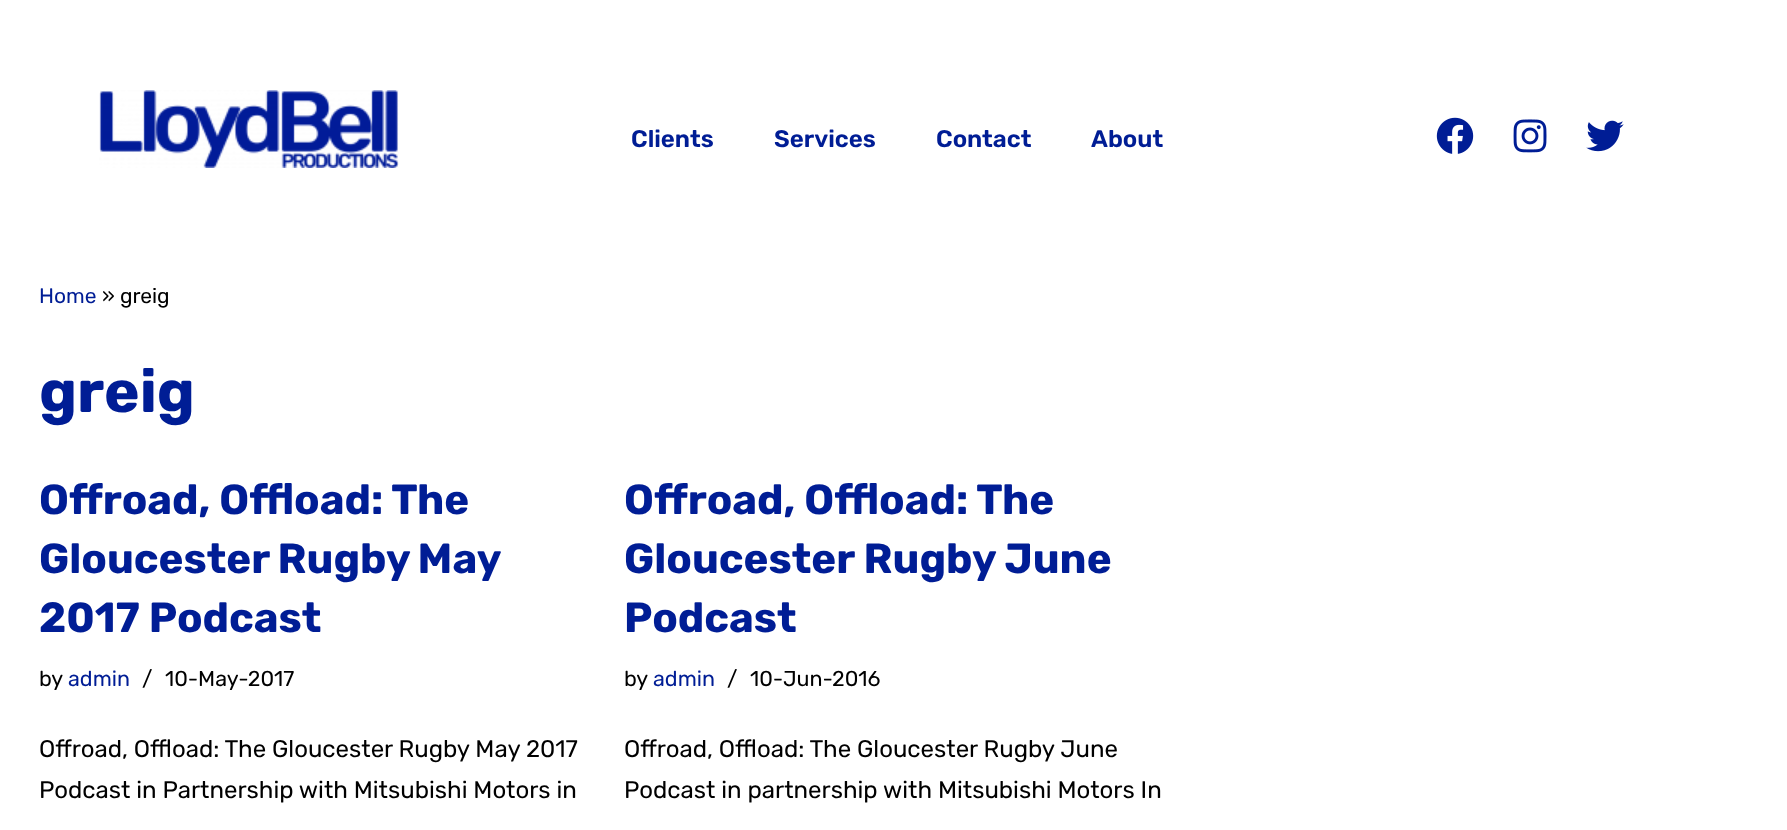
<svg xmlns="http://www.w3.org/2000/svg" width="1787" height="830">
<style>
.a{font:600 24px Rubik;fill:#001d95}
.b{font:21px Rubik;fill:#001d95}
.c{font:21px Rubik;fill:#000}
.d{font:bold 60px Rubik;fill:#001d95}
.e{font:bold 42px Rubik;fill:#001d95}
.f{font:21.5px Rubik;fill:#000}
.g{font:21.5px Rubik;fill:#001d95}
.h{font:24px Rubik;fill:#000}
</style>
<rect width="100%" height="100%" fill="#fff"/>
<image href="1.png" x="99" y="90" width="300" height="78"/>
<image href="2.png" x="1436" y="117" width="38" height="37"/>
<image href="3.png" x="1513" y="119" width="34" height="34"/>
<image href="4.png" x="1586" y="120" width="38" height="32"/>
<text class="a" x="631" y="147">Clients</text>
<text class="a" x="774" y="147">Services</text>
<text class="a" x="936" y="147">Contact</text>
<text class="a" x="1091" y="147">About</text>
<text class="b" x="39" y="303">Home</text>
<text class="c" x="102" y="303">» greig</text>
<text class="d" x="39" y="412">greig</text>
<text class="e" x="39" y="514">Offroad, Offload: The</text>
<text class="e" x="39" y="573" word-spacing="-1">Gloucester Rugby May</text>
<text class="e" x="39" y="632">2017 Podcast</text>
<text class="f" x="39" y="686">by</text>
<text class="g" x="68" y="686">admin</text>
<text class="f" x="142" y="686">/</text>
<text class="f" x="165" y="686">10-May-2017</text>
<text class="h" x="39" y="757">Offroad, Offload: The Gloucester Rugby May 2017</text>
<text class="h" x="39" y="798">Podcast in Partnership with Mitsubishi Motors in</text>
<text class="e" x="624" y="514">Offroad, Offload: The</text>
<text class="e" x="624" y="573">Gloucester Rugby June</text>
<text class="e" x="624" y="632">Podcast</text>
<text class="f" x="624" y="686">by</text>
<text class="g" x="653" y="686">admin</text>
<text class="f" x="727" y="686">/</text>
<text class="f" x="750" y="686">10-Jun-2016</text>
<text class="h" x="624" y="757">Offroad, Offload: The Gloucester Rugby June</text>
<text class="h" x="624" y="798">Podcast in partnership with Mitsubishi Motors In</text>
</svg>
